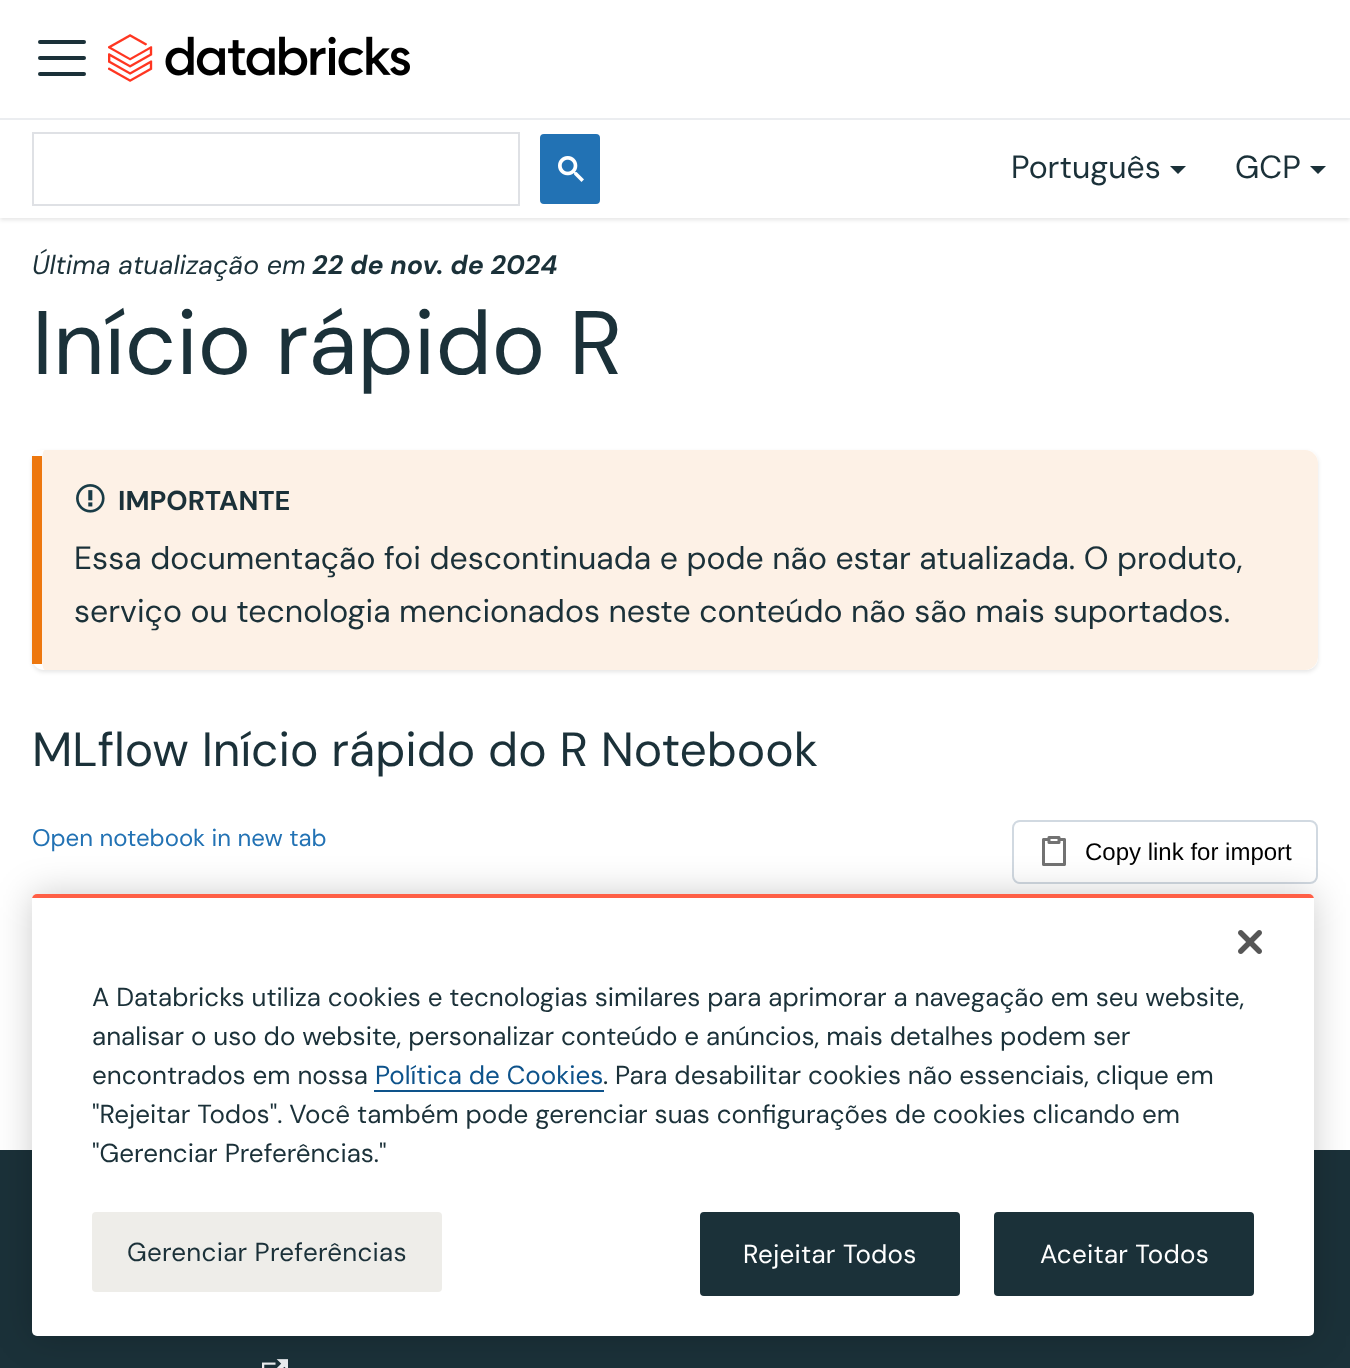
<svg xmlns="http://www.w3.org/2000/svg" width="1350" height="1368">
<style>
.a{font:32px DM Sans;fill:#1b3139}
.b{font:italic 26.75px DM Sans;fill:#1b3139}
.c{font:italic bold 26.75px DM Sans;fill:#1b3139}
.d{font:90px DM Sans;fill:#1b3139}
.e{font:bold 27.25px DM Sans;fill:#1b3139}
.f{font:48px DM Sans;fill:#1b3139}
.g{font:24px DM Sans;fill:#2272b4}
.h{font:24px Liberation Sans;fill:#000}
.i{font:26px DM Sans;fill:#1b3139}
.j{font:26px DM Sans;fill:#0e538b}
.k{font:26px DM Sans;letter-spacing:0.25px;fill:#1b3139}
.l{font:26px DM Sans;letter-spacing:0.25px;fill:#fff}
</style>
<defs>
<clipPath id="clip1"><path d="M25 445h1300v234h-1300zm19 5h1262c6.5 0 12 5.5 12 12v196c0 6.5-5.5 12-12 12h-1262c-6.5 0-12-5.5-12-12v-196c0-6.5 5.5-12 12-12z" clip-rule="evenodd"/></clipPath>
<clipPath id="clip2"><rect x="32" y="894" width="1282" height="442" rx="5"/></clipPath>
</defs>
<rect width="100%" height="100%" fill="#fff"/>
<path fill="#0000001a" filter="blur(2px)" d="M0 2h1350v218H0z"/>
<path fill="#fff" d="M0 0h1350v218H0z"/>
<path fill="#ebedf0" d="M0 118h1350v2H0z"/>
<path fill="none" stroke="#1b3139" stroke-width="4" stroke-linecap="round" d="M40 42h44m-44 16h44m-44 16h44"/>
<image href="1.png" x="108" y="34" width="302" height="48"/>
<path fill="none" stroke="#dfe1e5" stroke-width="2" d="M33 133h486v72H33z"/>
<rect fill="#2272b4" stroke="#2272b4" stroke-width="2" x="541" y="135" width="58" height="68" rx="3"/>
<image href="2.png" x="558" y="156" width="26" height="26"/>
<path fill="#1b3139" d="M1170 166h16l-8 8z"/>
<path fill="#1b3139" d="M1310 166h16l-8 8z"/>
<g clip-path="url(#clip1)">
<rect fill="#0000001a" filter="blur(2px)" x="32" y="452" width="1286" height="220" rx="12"/>
</g>
<path fill="#fdf1e6" d="M45 450h1260c7 0 13 6 13 13v194c0 7-6 13-13 13h-1260c-2 0-3-6-3-13v-194c0-7 1-13 3-13z"/>
<path fill="#ed770e" d="M32 456h10v208H32z"/>
<image href="3.png" x="76" y="484" width="29" height="29"/>
<rect fill="none" stroke="#d1d9e1" stroke-width="2" x="1013" y="821" width="304" height="62" rx="7"/>
<image href="4.png" x="1042" y="836" width="24" height="30"/>
<path fill="#1b3139" d="M0 1150h1350v218H0z"/>
<image href="5.png" x="262" y="1359" width="26" height="9"/>
<rect fill="#00000033" filter="blur(18px)" x="32" y="894" width="1282" height="442" rx="5"/>
<rect fill="#fff" x="32" y="894" width="1282" height="442" rx="5"/>
<g clip-path="url(#clip2)">
<path fill="#ff5f46" d="M32 894h1282v4H32z"/>
</g>
<image href="6.png" x="1238" y="930" width="24" height="24"/>
<path fill="#0e538b" d="M374 1090h230v2H374z"/>
<rect fill="#eeede9" x="92" y="1212" width="350" height="80" rx="4"/>
<rect fill="#1b3139" stroke="#1b3139" stroke-width="2" x="701" y="1213" width="258" height="82" rx="3"/>
<rect fill="#1b3139" stroke="#1b3139" stroke-width="2" x="995" y="1213" width="258" height="82" rx="3"/>
<text class="a" x="1011" y="178">Português</text>
<text class="a" x="1235" y="178">GCP</text>
<text class="b" x="32" y="274">Última atualização em</text>
<text class="c" x="312" y="274">22 de nov. de 2024</text>
<text class="d" x="32" y="374">Início rápido R</text>
<text class="e" x="118" y="510">IMPORTANTE</text>
<text class="a" x="74" y="569">Essa documentação foi descontinuada e pode não estar atualizada. O produto,</text>
<text class="a" x="74" y="622">serviço ou tecnologia mencionados neste conteúdo não são mais suportados.</text>
<text class="f" x="32" y="766">MLflow Início rápido do R Notebook</text>
<text class="g" x="32" y="846">Open notebook in new tab</text>
<text class="h" x="1085" y="860">Copy link for import</text>
<text class="i" x="92" y="1006">A Databricks utiliza cookies e tecnologias similares para aprimorar a navegação em seu website,</text>
<text class="i" x="92" y="1045">analisar o uso do website, personalizar conteúdo e anúncios, mais detalhes podem ser</text>
<text class="i" x="92" y="1084">encontrados em nossa</text>
<text class="j" x="375" y="1084">Política de Cookies</text>
<text class="i" x="603" y="1084">. Para desabilitar cookies não essenciais, clique em</text>
<text class="i" x="92" y="1123">"Rejeitar Todos". Você também pode gerenciar suas configurações de cookies clicando em</text>
<text class="i" x="92" y="1162">"Gerenciar Preferências."</text>
<text class="k" x="127" y="1261">Gerenciar Preferências</text>
<text class="l" x="743" y="1263">Rejeitar Todos</text>
<text class="l" x="1040" y="1263">Aceitar Todos</text>
</svg>
